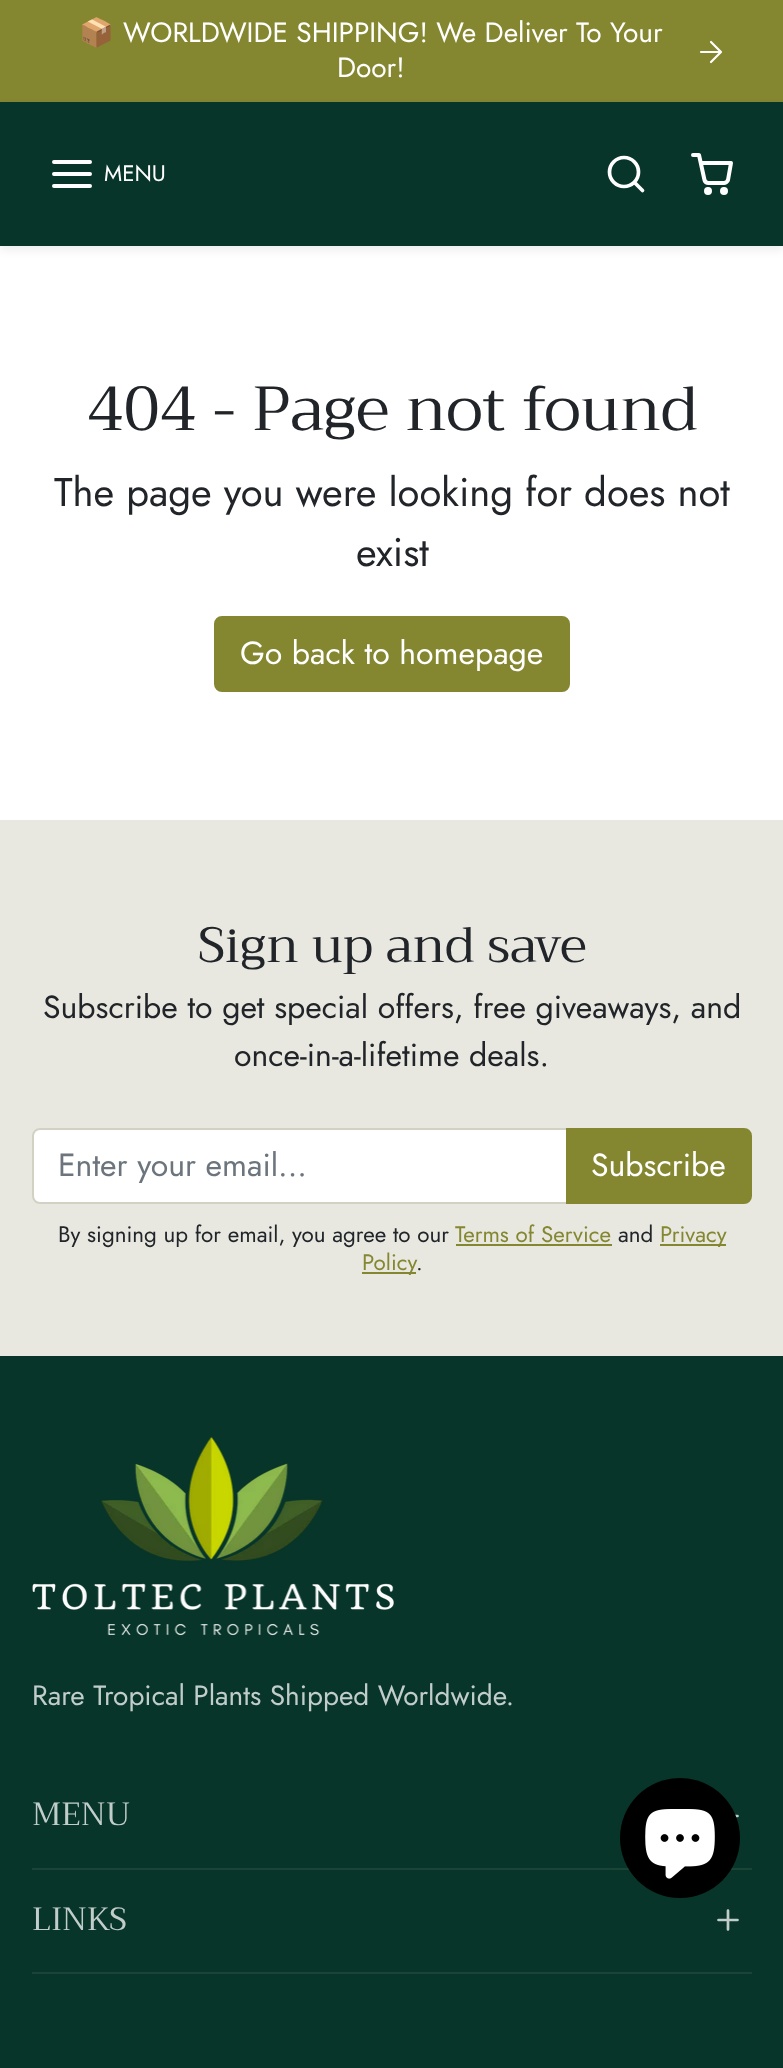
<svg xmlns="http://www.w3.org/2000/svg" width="783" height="2068">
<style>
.a{font:28px Noto Color Emoji;fill:#fff}
.b{font:28px Jost;fill:#fff}
.c{font:22.4px Jost;fill:#fff}
.d{font:62px Trirong;fill:#212529}
.e{font:40px Jost;fill:#212529}
.f{font:32px Jost;fill:#fff}
.g{font:49.5px Trirong;fill:#212529}
.h{font:32px Jost;fill:#212529}
.i{font:32px Jost;fill:#6c757d}
.j{font:22.4px Jost;fill:#212529}
.k{font:22.4px Jost;fill:#848730}
.l{font:28px Jost;fill:#c1cdca}
.m{font:32px Trirong;fill:#c1cdca}
</style>
<rect width="100%" height="100%" fill="#fff"/>
<path fill="#848730" d="M0 0h783v102H0z"/>
<path fill="none" stroke="#fff" stroke-width="2.2" stroke-linecap="round" stroke-linejoin="round" d="M701 52h19m-9-10l10 10l-10 10"/>
<path fill="#00000012" filter="blur(4px)" d="M0 106h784v144H0z"/>
<path fill="#083529" d="M0 102h783v144H0z"/>
<path fill="none" stroke="#fff" stroke-width="4" stroke-linecap="round" stroke-linejoin="round" d="M54 174h36m-36-12h36m-36 24h36"/>
<circle fill="none" stroke="#fff" stroke-width="3.7" cx="624" cy="172" r="14.5"/>
<path fill="none" stroke="#fff" stroke-width="3.7" stroke-linecap="round" stroke-linejoin="round" d="M642.5 190.5l-8-8"/>
<circle fill="none" stroke="#fff" stroke-width="4" cx="708" cy="191" r="2"/>
<circle fill="none" stroke="#fff" stroke-width="4" cx="724" cy="191" r="2"/>
<path fill="none" stroke="#fff" stroke-width="4" stroke-linecap="round" stroke-linejoin="round" d="M693 155h6l5.5 25c.5 1.5 2 3 4 3h15.5c1.5 0 3.5-1.5 4-3l3-17h-29"/>
<rect fill="#848730" stroke="#848730" stroke-width="2" x="215" y="617" width="354" height="74" rx="7"/>
<path fill="#e8e8e1" d="M0 820h783v536H0z"/>
<path fill="#fff" stroke="#d2d2c4" stroke-width="2" d="M40 1129h527v74h-527c-4 0-7-3-7-7v-60c0-4 3-7 7-7z"/>
<path fill="#848730" stroke="#848730" stroke-width="2" d="M567 1129h177c4 0 7 3 7 7v60c0 4-3 7-7 7h-177z"/>
<path fill="#848730" d="M456 1244h156v2H456z"/>
<path fill="#848730" d="M660 1244h66v2H660z"/>
<path fill="#848730" d="M362 1272h54v2H362z"/>
<path fill="#083529" d="M0 1356h783v712H0z"/>
<image href="1.png" x="32" y="1437" width="362" height="199"/>
<path fill="#1b4439" d="M32 1868h720v2H32z"/>
<path fill="none" stroke="#c1cdca" stroke-width="2.7" stroke-linecap="round" stroke-linejoin="round" d="M718.5 1816h19"/>
<path fill="#1b4439" d="M32 1972h720v2H32z"/>
<path fill="none" stroke="#c1cdca" stroke-width="2.7" stroke-linecap="round" stroke-linejoin="round" d="M728 1910.5v19m-9.5-9.5h19"/>
<circle fill="#000" cx="680" cy="1838" r="60"/>
<image href="2.png" x="645" y="1809" width="70" height="70"/>
<text class="a" x="79" y="42">📦</text>
<text class="b" x="123" y="42">WORLDWIDE SHIPPING! We Deliver To Your</text>
<text class="b" x="337" y="77">Door!</text>
<text class="c" x="104" y="181">MENU</text>
<text class="d" x="87" y="430">404 - Page not found</text>
<text class="e" x="54" y="506">The page you were looking for does not</text>
<text class="e" x="356" y="566">exist</text>
<text class="f" x="240" y="664">Go back to homepage</text>
<text class="g" x="198" y="962">Sign up and save</text>
<text class="h" x="43" y="1018">Subscribe to get special offers, free giveaways, and</text>
<text class="h" x="234" y="1066">once-in-a-lifetime deals.</text>
<text class="i" x="58" y="1176">Enter your email...</text>
<text class="f" x="591" y="1176">Subscribe</text>
<text class="j" x="58" y="1242">By signing up for email, you agree to our</text>
<text class="k" x="455" y="1242">Terms of Service</text>
<text class="j" x="618" y="1242">and</text>
<text class="k" x="660" y="1242">Privacy</text>
<text class="k" x="362" y="1270">Policy</text>
<text class="j" x="416" y="1270">.</text>
<text class="l" x="32" y="1705">Rare Tropical Plants Shipped Worldwide.</text>
<text class="m" x="32" y="1825">MENU</text>
<text class="m" x="32" y="1930">LINKS</text>
</svg>
